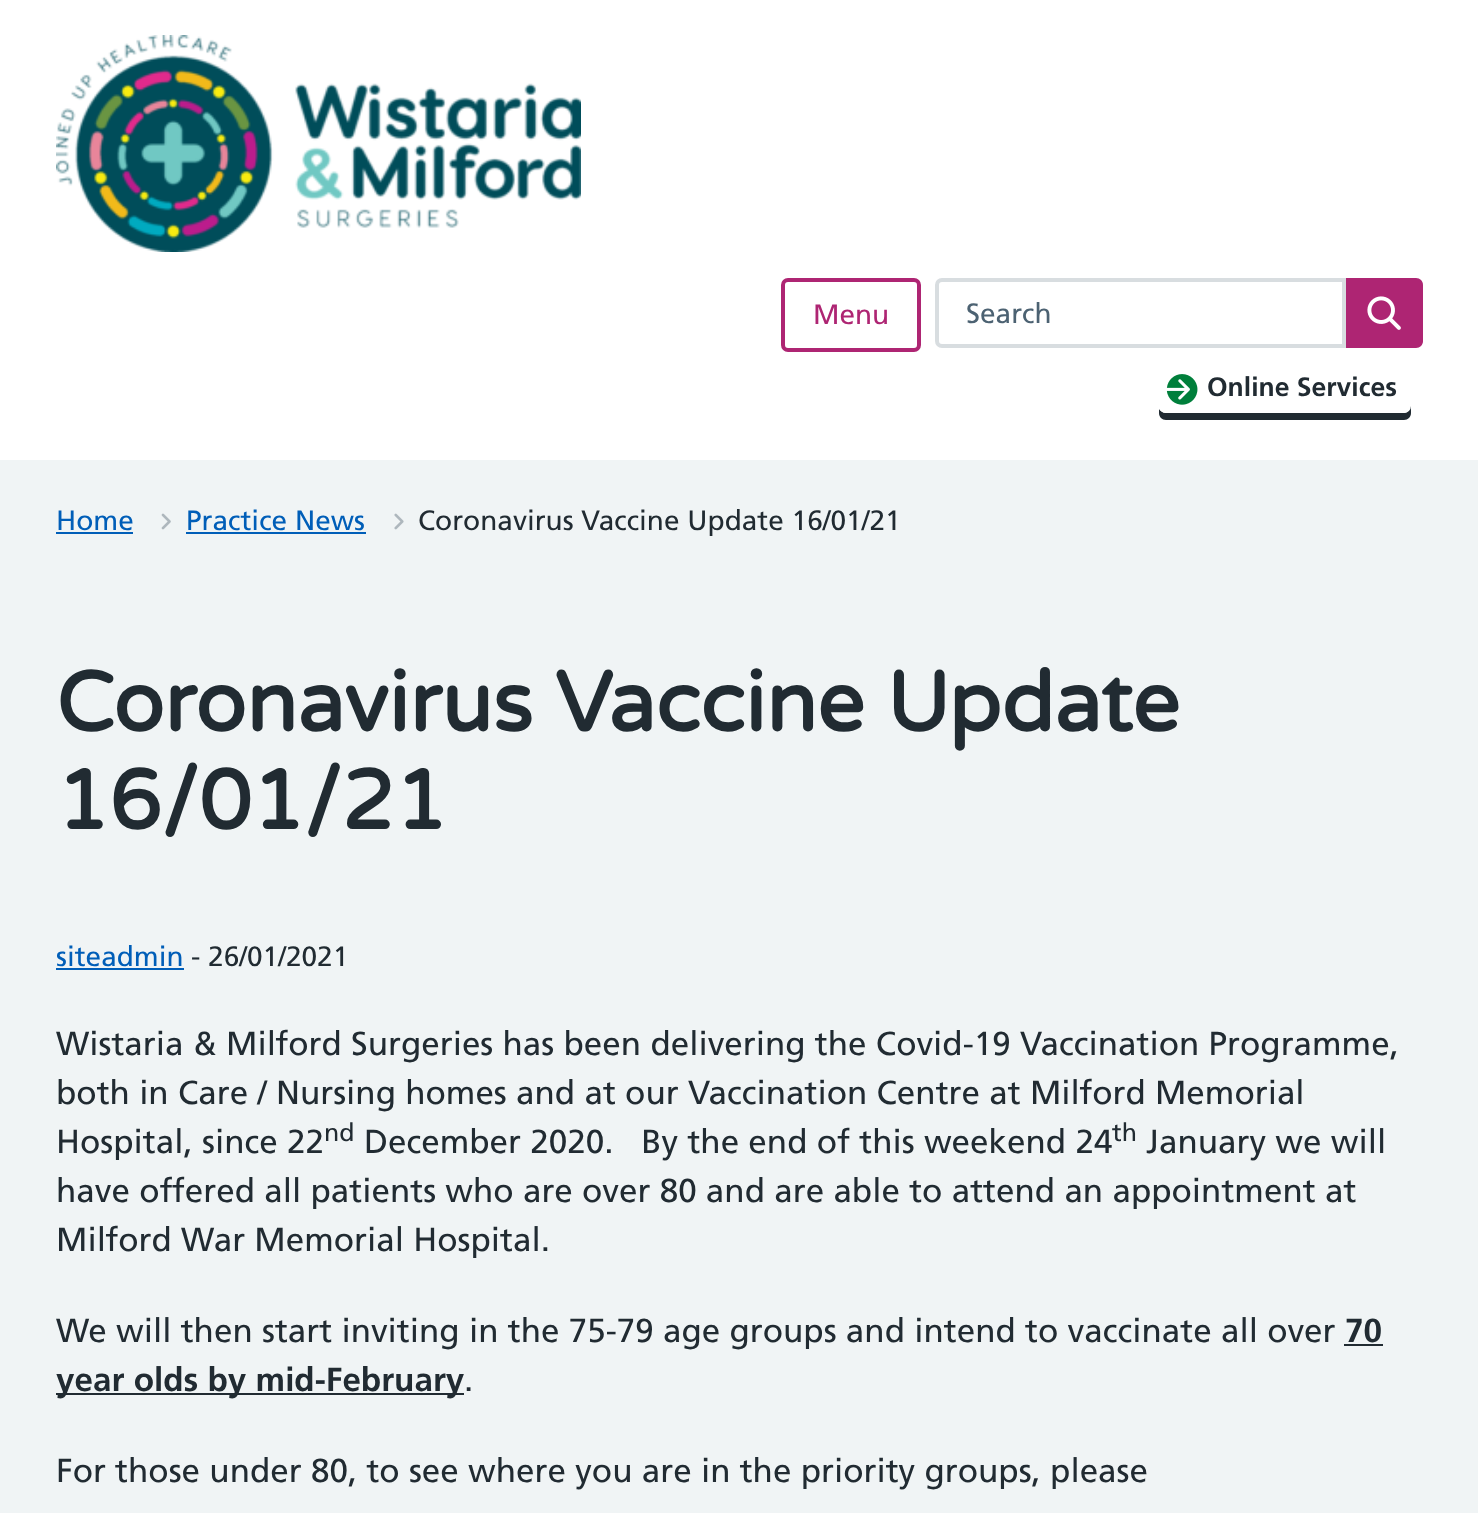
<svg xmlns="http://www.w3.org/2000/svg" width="1478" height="1513">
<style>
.a{font:28px Frutiger;fill:#ae2573}
.b{font:28px Frutiger;fill:#4c6272}
.c{font:bold 26.5px Frutiger;fill:#212b32}
.d{font:28px Frutiger;fill:#005eb8}
.e{font:28px Frutiger;fill:#212b32}
.f{font:bold 84px Varela Round;fill:#212b32}
.g{font:33.25px Frutiger;fill:#212b32}
.h{font:25px Frutiger;fill:#212b32}
.i{font:bold 33.25px Frutiger;fill:#212b32}
</style>
<rect width="100%" height="100%" fill="#f0f4f5"/>
<path fill="#fff" d="M0 0h1478v460H0z"/>
<image href="1.png" x="56" y="35" width="525" height="217"/>
<rect fill="none" stroke="#ae2573" stroke-width="4" x="783" y="280" width="136" height="70" rx="5"/>
<path fill="none" stroke="#d8dde0" stroke-width="4" d="M942 280h402v66h-402c-3 0-5-2-5-5v-56c0-3 2-5 5-5z"/>
<path fill="#ae2573" d="M1346 278h70c4 0 7 3 7 7v56c0 4-3 7-7 7h-70z"/>
<image href="2.png" x="1367" y="296" width="34" height="34"/>
<path fill="#212b32" d="M1159 409v4c0 4 3 7 7 7h238c4 0 7-3 7-7v-38l-1-3v34c0 4-3 7-6 7h-238c-3 0-6-2-7-4z"/>
<rect fill="#fff" x="1159" y="361" width="252" height="52" rx="7"/>
<image href="3.png" x="1166" y="374" width="32" height="31"/>
<path fill="#005eb8" d="M56 532h77v2H56z"/>
<image href="4.png" x="161" y="513" width="10" height="17"/>
<path fill="#005eb8" d="M186 532h180v2H186z"/>
<image href="5.png" x="394" y="513" width="10" height="17"/>
<path fill="#005eb8" d="M56 968h128v2H56z"/>
<path fill="#212b32" d="M1344 1344h39v2H1344z"/>
<path fill="#212b32" d="M56 1393h408v2H56z"/>
<text class="a" x="813" y="324">Menu</text>
<text class="b" x="966" y="323">Search</text>
<text class="c" x="1207" y="396">Online Services</text>
<text class="d" x="56" y="530">Home</text>
<text class="d" x="186" y="530">Practice News</text>
<text class="e" x="418" y="530">Coronavirus Vaccine Update 16/01/21</text>
<text class="f" x="56" y="731">Coronavirus Vaccine Update</text>
<text class="f" x="56" y="829">16/01/21</text>
<text class="d" x="56" y="966">siteadmin</text>
<text class="e" x="191" y="966">- 26/01/2021</text>
<text class="g" x="56" y="1055">Wistaria &amp; Milford Surgeries has been delivering the Covid-19 Vaccination Programme,</text>
<text class="g" x="56" y="1104">both in Care / Nursing homes and at our Vaccination Centre at Milford Memorial</text>
<text class="g" x="56" y="1153">Hospital, since 22</text>
<text class="h" x="324" y="1141">nd</text>
<text class="g" xml:space="preserve" x="364" y="1153">December 2020.   By the end of this weekend 24</text>
<text class="h" x="1112" y="1141">th</text>
<text class="g" x="1146" y="1153">January we will</text>
<text class="g" x="56" y="1202">have offered all patients who are over 80 and are able to attend an appointment at</text>
<text class="g" x="56" y="1251">Milford War Memorial Hospital.</text>
<text class="g" x="56" y="1342">We will then start inviting in the 75-79 age groups and intend to vaccinate all over</text>
<text class="i" x="1345" y="1342">70</text>
<text class="i" x="56" y="1391">year olds by mid-February</text>
<text class="g" x="464" y="1391">.</text>
<text class="g" x="56" y="1482">For those under 80, to see where you are in the priority groups, please</text>
</svg>
